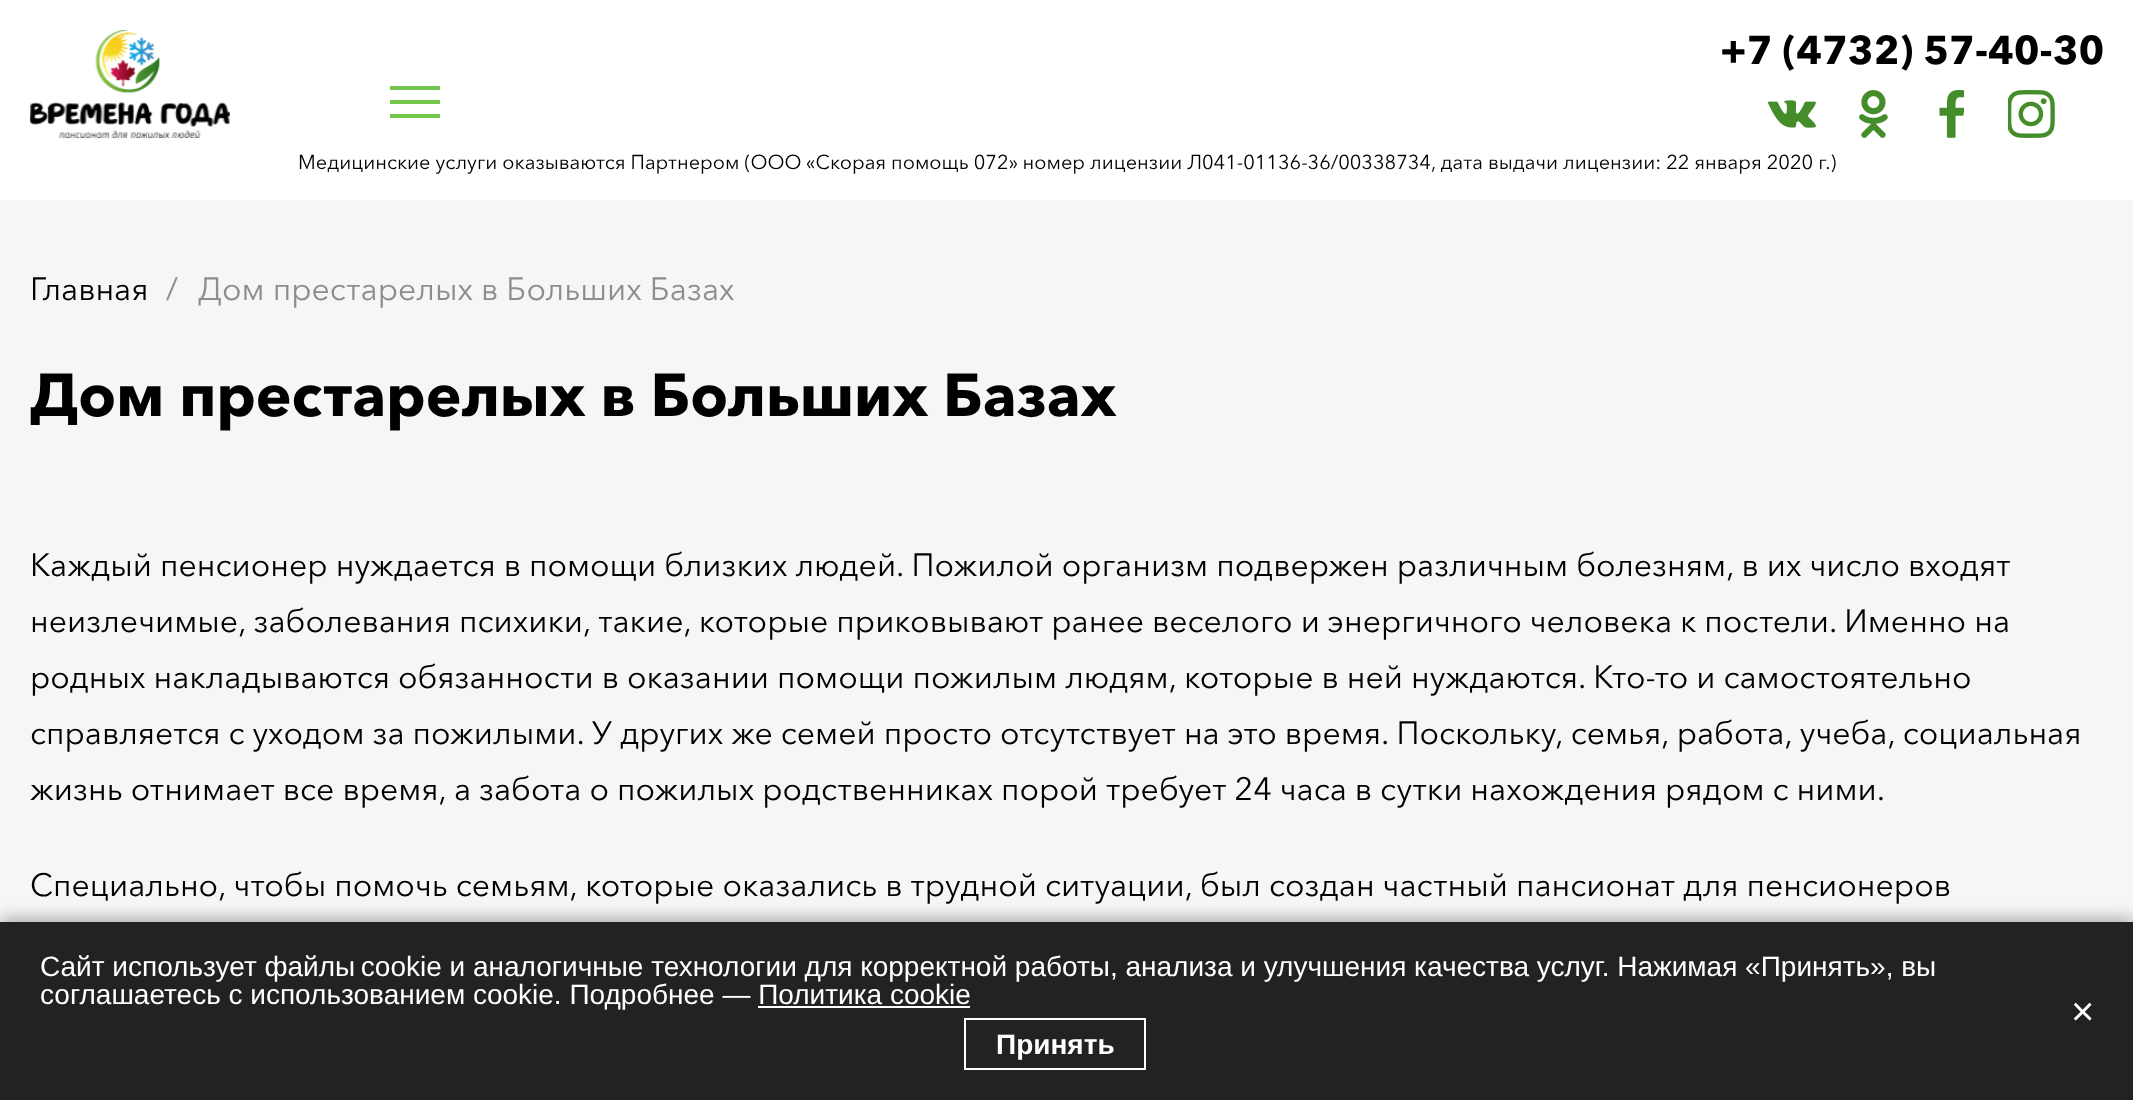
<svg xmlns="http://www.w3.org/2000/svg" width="2133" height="1100">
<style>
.a{font:bold 40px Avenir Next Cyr;fill:#000}
.b{font:20px Avenir Next Cyr;fill:#000}
.c{font:32px Avenir Next Cyr;fill:#000}
.d{font:32px Avenir Next Cyr;fill:#8d8d8d}
.e{font:bold 60px Avenir Next Cyr;fill:#000}
.f{font:28px Liberation Sans;fill:#fff}
.g{font:bold 28px Liberation Sans;fill:#fff}
.h{font:40px Liberation Sans;fill:#fff}
</style>
<rect width="100%" height="100%" fill="#f6f6f6"/>
<path fill="#fff" d="M0 0h2133v200H0z"/>
<image href="1.png" x="30" y="30" width="200" height="109"/>
<image href="2.png" x="1768" y="100" width="48" height="28"/>
<image href="3.png" x="1859" y="90" width="29" height="48"/>
<image href="4.png" x="1939" y="90" width="25" height="48"/>
<image href="5.png" x="2008" y="90" width="47" height="48"/>
<path fill="#73c74b" d="M390 86h50v4H390z"/>
<path fill="#73c74b" d="M390 100h50v4H390z"/>
<path fill="#73c74b" d="M390 114h50v4H390z"/>
<path fill="#0000004d" filter="blur(8px)" d="M0 918h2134v178H0z"/>
<path fill="#222" d="M0 922h2133v178H0z"/>
<path fill="#fff" d="M758 1006h212v2H758z"/>
<path fill="none" stroke="#fff" stroke-width="2" d="M965 1019h180v50H965z"/>
<text class="a" x="1720" y="64">+7 (4732) 57-40-30</text>
<text class="b" x="298" y="169">Медицинские услуги оказываются Партнером (ООО «Скорая помощь 072» номер лицензии Л041-01136-36/00338734, дата выдачи лицензии: 22 января 2020 г.)</text>
<text class="c" x="30" y="300">Главная</text>
<text class="d" x="166" y="300">/</text>
<text class="d" x="198" y="300">Дом престарелых в Больших Базах</text>
<text class="e" x="30" y="416">Дом престарелых в Больших Базах</text>
<text class="c" x="30" y="576">Каждый пенсионер нуждается в помощи близких людей. Пожилой организм подвержен различным болезням, в их число входят</text>
<text class="c" x="30" y="632">неизлечимые, заболевания психики, такие, которые приковывают ранее веселого и энергичного человека к постели. Именно на</text>
<text class="c" x="30" y="688">родных накладываются обязанности в оказании помощи пожилым людям, которые в ней нуждаются. Кто-то и самостоятельно</text>
<text class="c" x="30" y="744">справляется с уходом за пожилыми. У других же семей просто отсутствует на это время. Поскольку, семья, работа, учеба, социальная</text>
<text class="c" x="30" y="800">жизнь отнимает все время, а забота о пожилых родственниках порой требует 24 часа в сутки нахождения рядом с ними.</text>
<text class="c" x="30" y="896">Специально, чтобы помочь семьям, которые оказались в трудной ситуации, был создан частный пансионат для пенсионеров</text>
<text class="f" x="40" y="976">Сайт использует файлы cookie и аналогичные технологии для корректной работы, анализа и улучшения качества услуг. Нажимая «Принять», вы</text>
<text class="f" x="40" y="1004">соглашаетесь с использованием cookie. Подробнее — Политика cookie</text>
<text class="g" x="996" y="1054">Принять</text>
<text class="h" x="2071" y="1025">×</text>
</svg>
